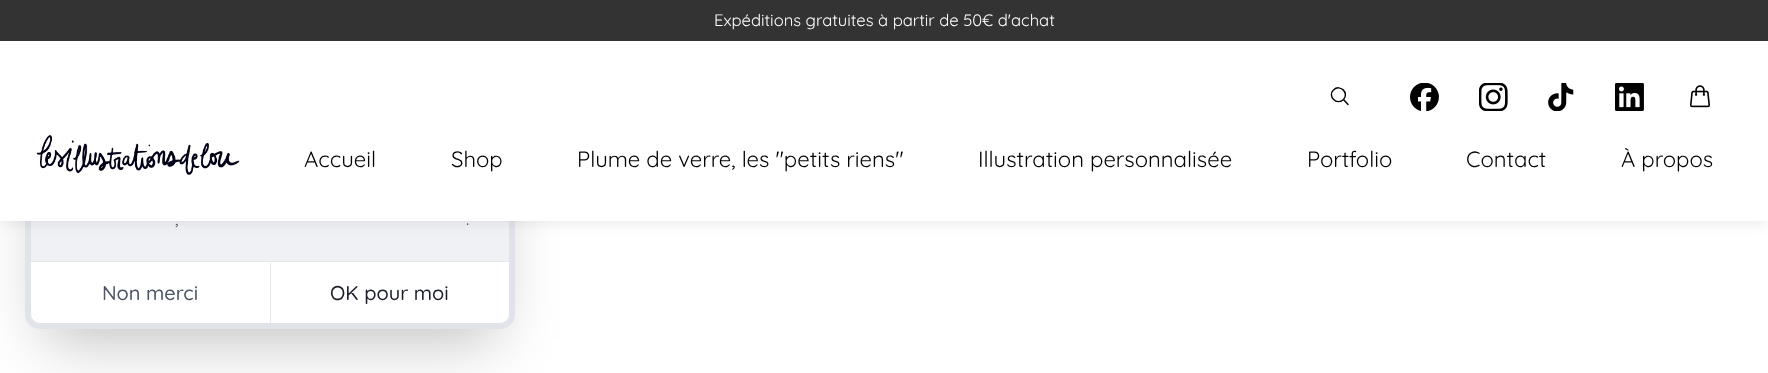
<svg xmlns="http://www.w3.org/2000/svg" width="1768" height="373">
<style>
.a{font:16.6px Quicksand;fill:#fff}
.b{font:22.1px Quicksand;fill:#000}
.c{font:18px Quicksand;fill:#4a5565}
.d{font:500 20px Quicksand;fill:#4a5565}
.e{font:500 20px Quicksand;fill:#1c1f2a}
</style>
<rect width="100%" height="100%" fill="#fff"/>
<path fill="#00000040" filter="blur(31px)" d="M45 101h450v239H45z"/>
<rect fill="none" stroke="#e1e3eb" stroke-width="5" x="27.5" y="52.5" width="485" height="274" rx="12.5"/>
<rect fill="#fff" stroke="#e1e3eb" x="30.5" y="55.5" width="479" height="268" rx="9.5"/>
<path fill="#f0f1f5" d="M31 221h478v40H31z"/>
<path fill="#00000014" filter="blur(7px)" d="M0 1h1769v222H0z"/>
<path fill="#fff" d="M0 41h1768v180H0z"/>
<path fill="#333" d="M0 0h1768v41H0z"/>
<path fill="none" stroke="#000" stroke-width="1.4" stroke-linecap="round" stroke-linejoin="round" d="M1348 104.5l-4.5-5m0 0c6-6.5-3.5-16-10-9.5c-6.5 6 3.5 16 10 9.5z"/>
<image href="1.png" x="1410" y="83" width="29" height="28"/>
<image href="2.png" x="1479" y="83" width="29" height="28"/>
<image href="3.png" x="1548" y="83" width="26" height="28"/>
<image href="4.png" x="1615" y="83" width="29" height="28"/>
<image href="5.png" x="1690" y="85" width="20" height="23"/>
<image href="6.png" x="36" y="135" width="204" height="40"/>
<path fill="#e5e7eb" d="M31 261h478v1H31z"/>
<path fill="#e5e7eb" d="M270 263h1v60H270z"/>
<text class="a" x="714" y="26">Expéditions gratuites à partir de 50€ d'achat</text>
<text class="b" x="304" y="167">Accueil</text>
<text class="b" x="451" y="167">Shop</text>
<text class="b" x="577" y="167">Plume de verre, les "petits riens"</text>
<text class="b" x="978" y="167">Illustration personnalisée</text>
<text class="b" x="1307" y="167">Portfolio</text>
<text class="b" x="1466" y="167">Contact</text>
<text class="b" x="1621" y="167">À propos</text>
<text class="c" x="175" y="225">,</text>
<text class="c" x="466" y="225">.</text>
<text class="d" x="102" y="300">Non merci</text>
<text class="e" x="330" y="300">OK pour moi</text>
</svg>
